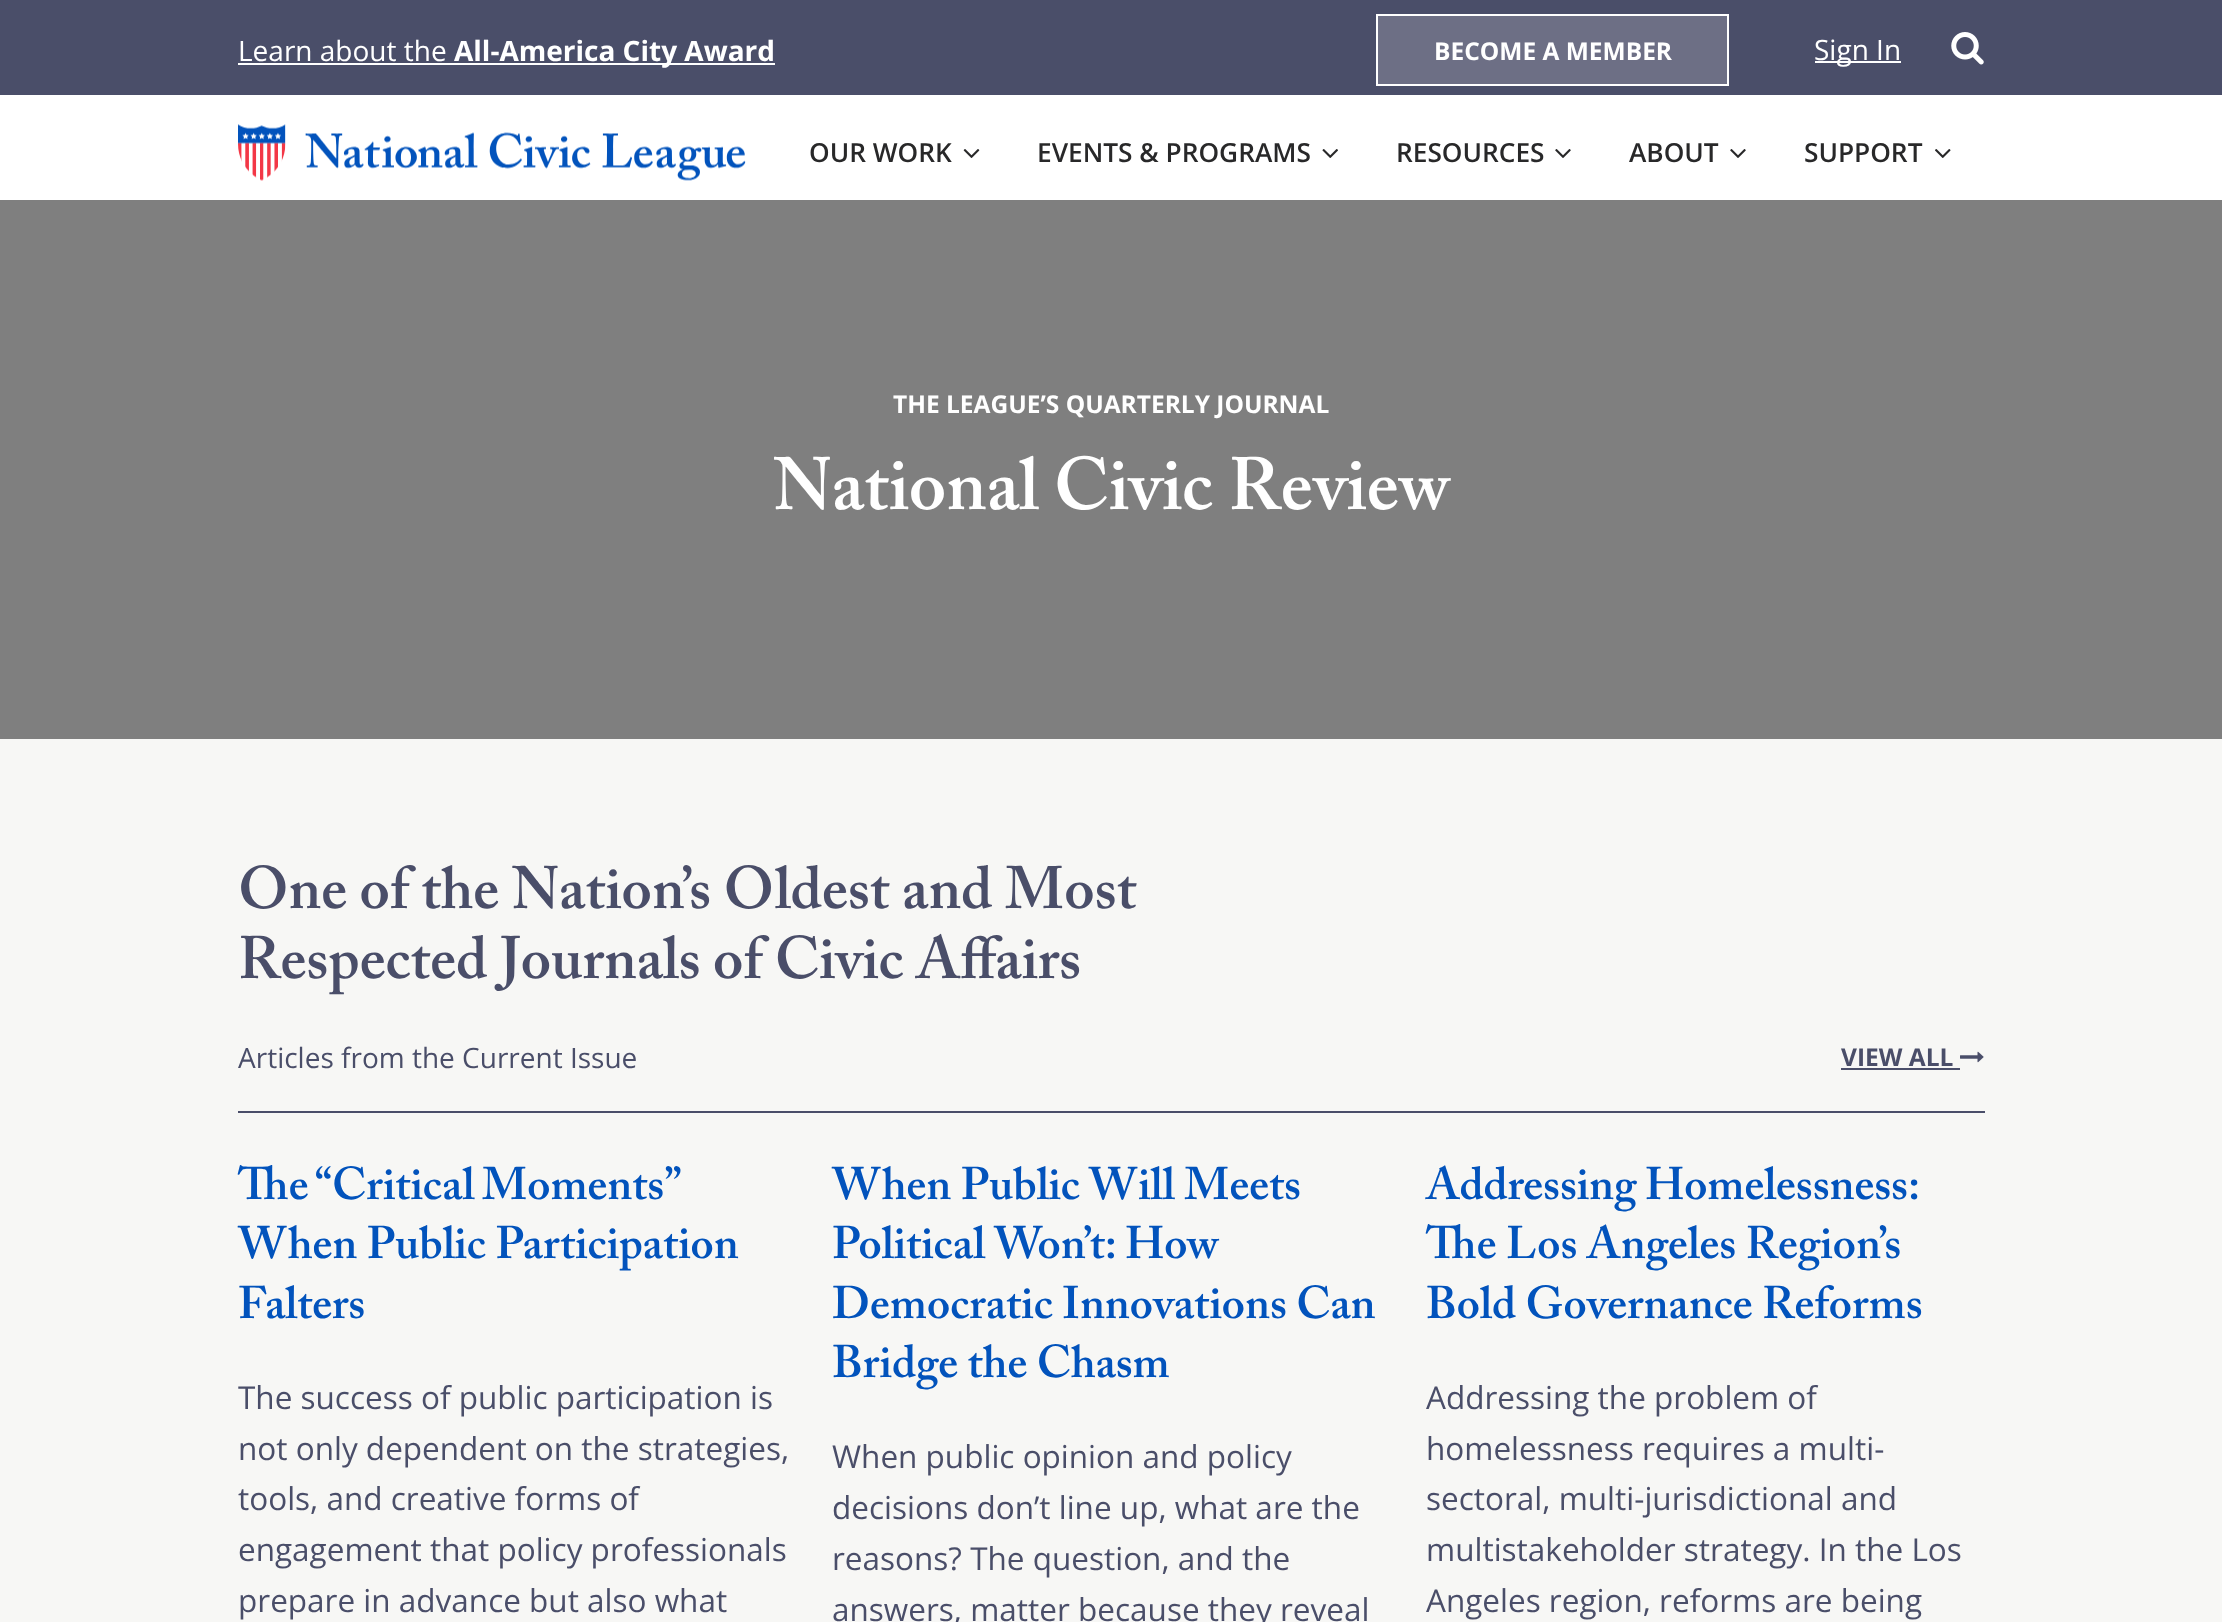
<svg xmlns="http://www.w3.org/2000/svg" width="2222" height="1622">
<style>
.a{font:28px Open Sans;fill:#fff}
.b{font:bold 28px Open Sans;fill:#fff}
.c{font:bold 24.5px Open Sans;fill:#fff}
.d{font:600 26.25px Open Sans;fill:#282829}
.e{font:600 73.5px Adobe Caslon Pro;fill:#fff}
.f{font:600 59.5px Adobe Caslon Pro;fill:#4a4e69}
.g{font:28px Open Sans;fill:#4a4e69}
.h{font:bold 24.5px Open Sans;fill:#4a4e69}
.i{font:600 45.5px Adobe Caslon Pro;fill:#0253bc}
.j{font:31.5px Open Sans;fill:#4a4e69}
</style>
<rect width="100%" height="100%" fill="#f7f7f5"/>
<path fill="#4a4e69" d="M0 0h2222v95H0z"/>
<path fill="#fff" d="M238 63h537v2H238z"/>
<path fill="#6d6f85" stroke="#fff" stroke-width="2" d="M1377 15h351v70H1377z"/>
<path fill="#fff" d="M1815 61h86v2H1815z"/>
<image href="1.png" x="1951" y="32" width="33" height="33"/>
<path fill="#fff" d="M0 95h2222v105H0z"/>
<image href="2.png" x="238" y="124" width="508" height="57"/>
<image href="3.png" x="963" y="149" width="17" height="9"/>
<image href="4.png" x="1322" y="149" width="16" height="9"/>
<image href="5.png" x="1555" y="149" width="16" height="9"/>
<image href="5.png" x="1730" y="149" width="16" height="9"/>
<image href="6.png" x="1935" y="149" width="16" height="9"/>
<path fill="#7f7f7f" d="M0 200h2222v539H0z"/>
<path fill="#4a4e69" d="M238 1111h1747v2H238z"/>
<path fill="#4a4e69" d="M1841 1068h119v2H1841z"/>
<image href="7.png" x="1960" y="1051" width="24" height="12"/>
<text class="a" x="238" y="61">Learn about the</text>
<text class="b" x="454" y="61">All-America City Award</text>
<text class="c" x="1434" y="60">BECOME A MEMBER</text>
<text class="a" x="1814" y="60">Sign In</text>
<text class="d" x="809" y="162">OUR WORK</text>
<text class="d" x="1037" y="162">EVENTS &amp; PROGRAMS</text>
<text class="d" x="1396" y="162">RESOURCES</text>
<text class="d" x="1629" y="162">ABOUT</text>
<text class="d" x="1804" y="162">SUPPORT</text>
<text class="c" x="893" y="413">THE LEAGUE’S QUARTERLY JOURNAL</text>
<text class="e" x="773" y="509">National Civic Review</text>
<text class="f" x="238" y="908">One of the Nation’s Oldest and Most</text>
<text class="f" x="238" y="978">Respected Journals of Civic Affairs</text>
<text class="g" x="238" y="1068">Articles from the Current Issue</text>
<text class="h" x="1841" y="1066">VIEW ALL</text>
<text class="i" x="238" y="1199" word-spacing="-2">The “Critical Moments”</text>
<text class="i" x="238" y="1258">When Public Participation</text>
<text class="i" x="238" y="1318">Falters</text>
<text class="j" x="238" y="1409">The success of public participation is</text>
<text class="j" x="238" y="1460">not only dependent on the strategies,</text>
<text class="j" x="238" y="1510">tools, and creative forms of</text>
<text class="j" x="238" y="1561">engagement that policy professionals</text>
<text class="j" x="238" y="1612">prepare in advance but also what</text>
<text class="i" x="832" y="1199">When Public Will Meets</text>
<text class="i" x="832" y="1258">Political Won’t: How</text>
<text class="i" x="832" y="1318">Democratic Innovations Can</text>
<text class="i" x="832" y="1377">Bridge the Chasm</text>
<text class="j" x="832" y="1468">When public opinion and policy</text>
<text class="j" x="832" y="1519">decisions don’t line up, what are the</text>
<text class="j" x="832" y="1570">reasons? The question, and the</text>
<text class="j" x="832" y="1621">answers, matter because they reveal</text>
<text class="i" x="1426" y="1199" word-spacing="-1">Addressing Homelessness:</text>
<text class="i" x="1426" y="1258">The Los Angeles Region’s</text>
<text class="i" x="1426" y="1318">Bold Governance Reforms</text>
<text class="j" x="1426" y="1409">Addressing the problem of</text>
<text class="j" x="1426" y="1460">homelessness requires a multi-</text>
<text class="j" x="1426" y="1510">sectoral, multi-jurisdictional and</text>
<text class="j" x="1426" y="1561">multistakeholder strategy. In the Los</text>
<text class="j" x="1426" y="1612">Angeles region, reforms are being</text>
</svg>
